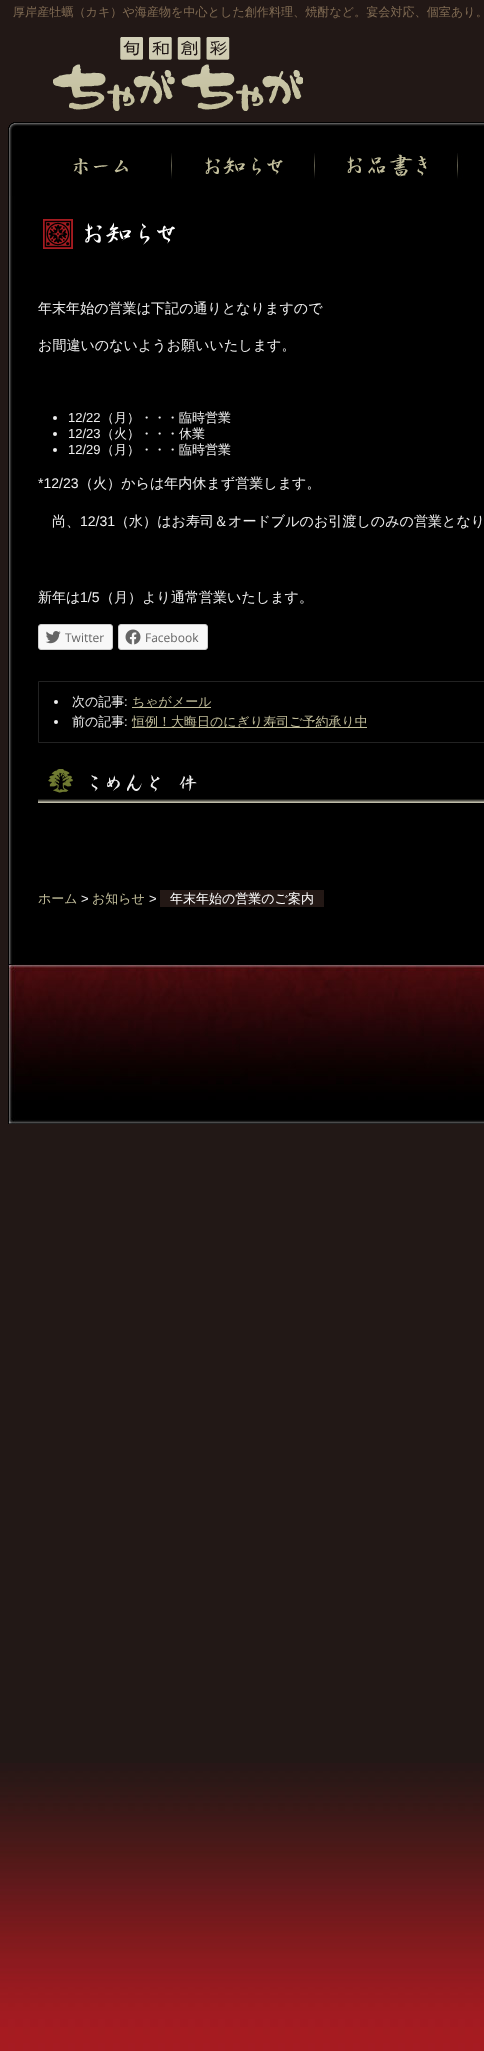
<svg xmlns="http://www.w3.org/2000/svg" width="484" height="2051">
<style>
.a{font:500 12.1px WenQuanYi Zen Hei;fill:#806b53}
.b{font:500 14.05px WenQuanYi Zen Hei;fill:#eee}
.c{font:13px Liberation Sans;fill:#eee}
.d{font:500 13px WenQuanYi Zen Hei;fill:#eee}
.e{font:14.05px Liberation Sans;fill:#eee}
.f{font:12px Open Sans;fill:#656565}
.g{font:500 13px WenQuanYi Zen Hei;fill:#c1bd9a}
.h{font:500 13px WenQuanYi Zen Hei;fill:#fff}
</style>
<rect width="100%" height="100%" fill="#221816"/>
<image href="1.png" x="0" y="1763" width="484" height="288"/>
<image href="2.png" x="8" y="122" width="476" height="31"/>
<image href="3.png" x="53" y="37" width="250" height="74"/>
<image href="4.png" x="8" y="153" width="476" height="43"/>
<image href="5.png" x="73" y="158" width="55" height="17"/>
<image href="6.png" x="205" y="157" width="78" height="19"/>
<image href="7.png" x="347" y="154" width="80" height="23"/>
<image href="8.png" x="8" y="196" width="476" height="768"/>
<image href="9.png" x="43" y="219" width="132" height="30"/>
<circle fill="#eee" cx="55" cy="418" r="2"/>
<circle fill="#eee" cx="55" cy="434" r="2"/>
<circle fill="#eee" cx="55" cy="450" r="2"/>
<rect fill="#f8f8f8" stroke="#ccc" x="38.5" y="624.5" width="74" height="25" rx="2.5"/>
<image href="10.png" x="45" y="631" width="16" height="13"/>
<rect fill="#f8f8f8" stroke="#ccc" x="118.5" y="624.5" width="89" height="25" rx="2.5"/>
<image href="11.png" x="125" y="629" width="16" height="16"/>
<path fill="none" stroke="#222" d="M38.5 681.5h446v61H38.5z"/>
<circle fill="#eee" cx="56" cy="702" r="2"/>
<path fill="#c1bd9a" d="M132 707h79v1H132z"/>
<circle fill="#eee" cx="56" cy="722" r="2"/>
<path fill="#c1bd9a" d="M132 727h235v1H132z"/>
<image href="12.png" x="38" y="769" width="446" height="34"/>
<image href="13.png" x="91" y="774" width="69" height="18"/>
<image href="14.png" x="179" y="775" width="18" height="16"/>
<path fill="#231815" d="M160 890h164v17H160z"/>
<image href="15.png" x="8" y="964" width="476" height="160"/>
<text class="a" x="13" y="16">厚岸産牡蠣（カキ）や海産物を中心とした創作料理、焼酎など。宴会対応、個室あり。</text>
<text class="b" x="38" y="313">年末年始の営業は下記の通りとなりますので</text>
<text class="b" x="38" y="350">お間違いのないようお願いいたします。</text>
<text class="c" x="68" y="422">12/22</text>
<text class="d" x="101" y="422">（月）・・・臨時営業</text>
<text class="c" x="68" y="438">12/23</text>
<text class="d" x="101" y="438">（火）・・・休業</text>
<text class="c" x="68" y="454">12/29</text>
<text class="d" x="101" y="454">（月）・・・臨時営業</text>
<text class="e" x="38" y="488">*12/23</text>
<text class="b" x="79" y="488">（火）からは年内休まず営業します。</text>
<text class="b" x="52" y="526">尚、</text>
<text class="e" x="80" y="526">12/31</text>
<text class="b" x="115" y="526">（水）はお寿司＆オードブルのお引渡しのみの営業となり</text>
<text class="b" x="38" y="602">新年は</text>
<text class="e" x="80" y="602">1/5</text>
<text class="b" x="100" y="602">（月）より通常営業いたします。</text>
<text class="f" x="65" y="642">Twitter</text>
<text class="f" x="145" y="642">Facebook</text>
<text class="d" x="72" y="706">次の記事</text>
<text class="c" x="124" y="706">:</text>
<text class="g" x="132" y="706">ちゃがメール</text>
<text class="d" x="72" y="726">前の記事</text>
<text class="c" x="124" y="726">:</text>
<text class="g" x="132" y="726">恒例！大晦日のにぎり寿司ご予約承り中</text>
<text class="g" x="38" y="903">ホーム</text>
<text class="c" x="81" y="903">&gt;</text>
<text class="g" x="92" y="903">お知らせ</text>
<text class="c" x="149" y="903">&gt;</text>
<text class="h" x="170" y="903">年末年始の営業のご案内</text>
</svg>
